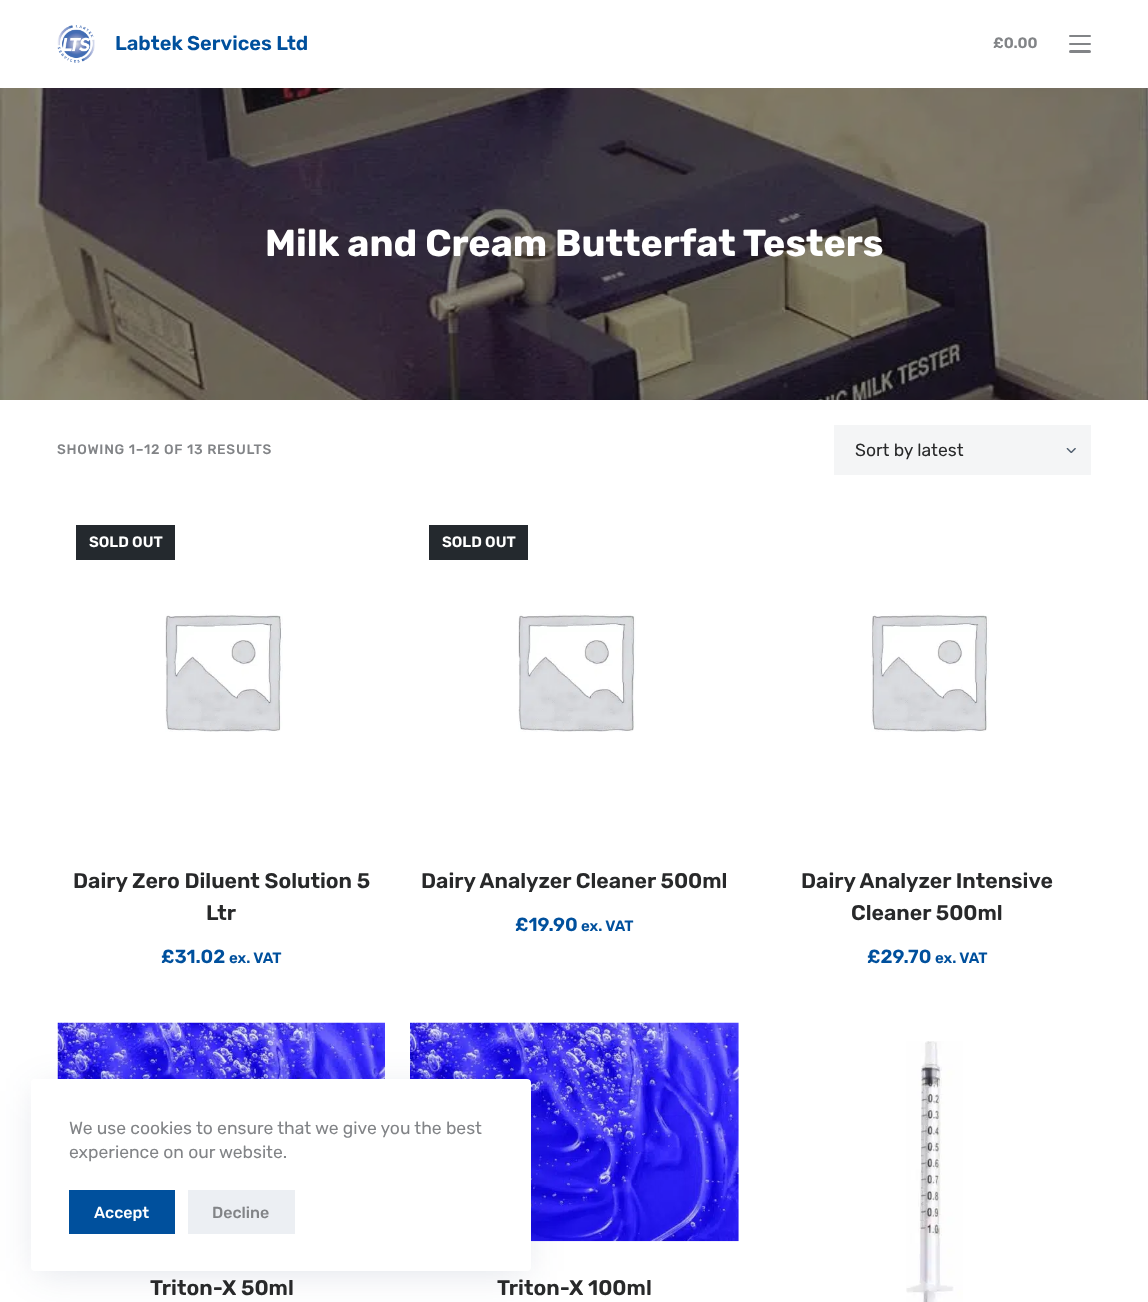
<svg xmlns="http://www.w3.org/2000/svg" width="1148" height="1302">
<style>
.a{font:600 20px Rubik;fill:#00509d}
.b{font:600 15px Rubik;fill:#828487}
.c{font:bold 37.5px Rubik;fill:#fff}
.d{font:500 13.75px Rubik;letter-spacing:0.7px;fill:#828487}
.e{font:17.5px Rubik;fill:#28292a}
.f{font:600 15px Rubik;fill:#fff}
.g{font:600 21.25px Rubik;fill:#28292a}
.h{font:600 19px Rubik;fill:#00509d}
.i{font:600 15px Rubik;fill:#00509d}
.j{font:17.5px Rubik;fill:#828487}
.k{font:500 16px Rubik;fill:#fff}
.l{font:500 16px Rubik;fill:#828487}
</style>
<rect width="100%" height="100%" fill="#fff"/>
<image href="1.png" x="57" y="25" width="38" height="38"/>
<rect fill="#828487" x="1069" y="35" width="22" height="2" rx="1"/>
<rect fill="#828487" x="1069" y="43" width="22" height="2" rx="1"/>
<rect fill="#828487" x="1069" y="50" width="22" height="3" rx="1.5"/>
<image href="2.png" x="0" y="88" width="1148" height="312"/>
<path fill="#f4f5f6" d="M834 425h257v50H834z"/>
<image href="3.png" x="1066" y="448" width="10" height="5"/>
<path fill="#24292e" d="M76 525h99v35H76z"/>
<image href="4.png" x="165" y="614" width="118" height="118"/>
<path fill="#24292e" d="M429 525h99v35H429z"/>
<image href="5.png" x="518" y="614" width="118" height="118"/>
<image href="6.png" x="871" y="614" width="118" height="118"/>
<image href="7.png" x="57" y="1022" width="328" height="57"/>
<image href="8.png" x="410" y="1022" width="329" height="220"/>
<image href="9.png" x="906" y="1041" width="57" height="261"/>
<path fill="#22386526" filter="blur(19px)" d="M38 1091h487v180H38z"/>
<rect fill="#fff" x="31" y="1079" width="500" height="192" rx="4"/>
<path fill="#00509d" d="M69 1190h106v44H69z"/>
<path fill="#eceff3" d="M188 1190h107v44H188z"/>
<text class="a" x="115" y="50">Labtek Services Ltd</text>
<text class="b" x="993" y="48">£0.00</text>
<text class="c" x="265" y="256">Milk and Cream Butterfat Testers</text>
<text class="d" x="57" y="454">SHOWING 1–12 OF 13 RESULTS</text>
<text class="e" x="855" y="456">Sort by latest</text>
<text class="f" x="89" y="547">SOLD OUT</text>
<text class="g" x="73" y="888">Dairy Zero Diluent Solution 5</text>
<text class="g" x="206" y="920">Ltr</text>
<text class="h" x="161" y="963">£31.02</text>
<text class="i" x="229" y="963">ex. VAT</text>
<text class="f" x="442" y="547">SOLD OUT</text>
<text class="g" x="421" y="888">Dairy Analyzer Cleaner 500ml</text>
<text class="h" x="515" y="931">£19.90</text>
<text class="i" x="581" y="931">ex. VAT</text>
<text class="g" x="801" y="888">Dairy Analyzer Intensive</text>
<text class="g" x="851" y="920">Cleaner 500ml</text>
<text class="h" x="867" y="963">£29.70</text>
<text class="i" x="935" y="963">ex. VAT</text>
<text class="g" x="150" y="1295">Triton-X 50ml</text>
<text class="g" x="497" y="1295">Triton-X 100ml</text>
<text class="j" x="69" y="1134">We use cookies to ensure that we give you the best</text>
<text class="j" x="69" y="1158">experience on our website.</text>
<text class="k" x="94" y="1218">Accept</text>
<text class="l" x="212" y="1218">Decline</text>
</svg>
